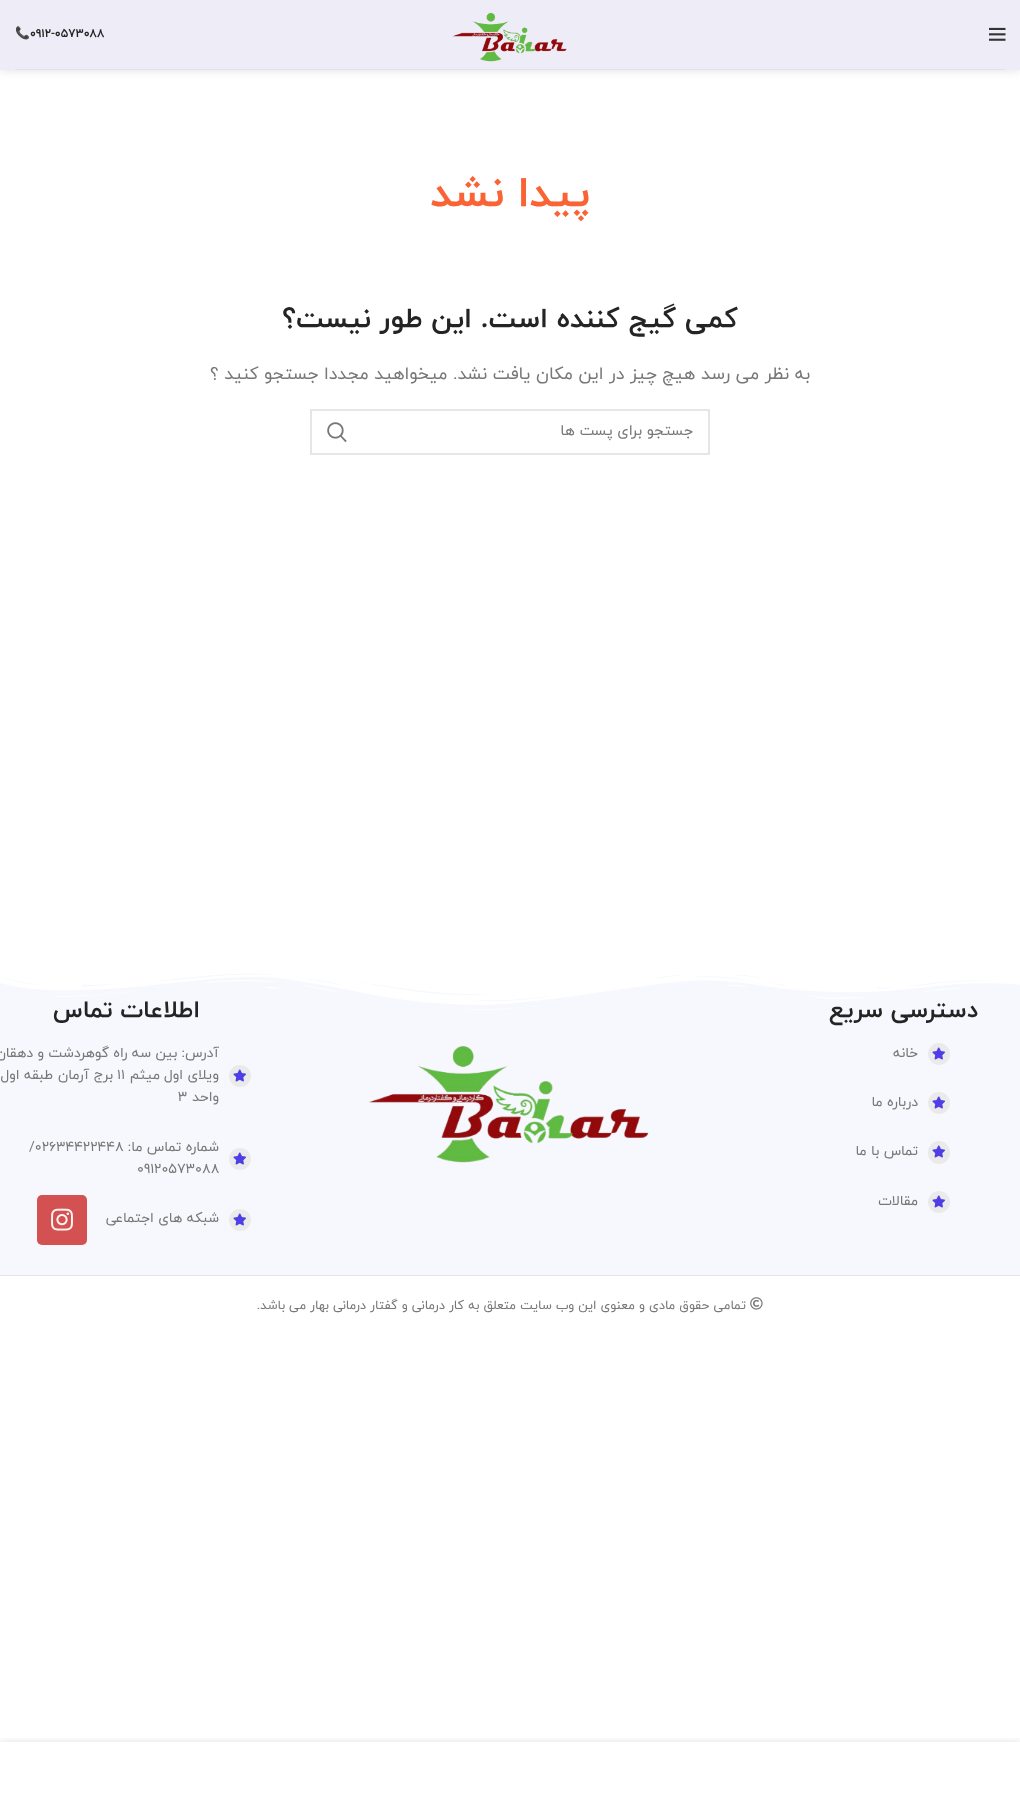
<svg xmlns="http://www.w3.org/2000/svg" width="1020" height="1797">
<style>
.a{font:bold 12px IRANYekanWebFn;fill:#242424}
.b{font:bold 12px Noto Color Emoji;fill:#242424}
.c{font:bold 43px IRANYekanWebFn;direction:rtl;fill:#fa6334}
.d{font:bold 28px IRANYekanWebFn;direction:rtl;fill:#242424}
.e{font:17.6px IRANYekanWebFn;direction:rtl;fill:#777}
.f{font:15px IRANYekanWebFn;direction:rtl;fill:#777}
.g{font:bold 24px IRANYekanWebFn;direction:rtl;fill:#242424}
.h{font:14px IRANYekanWebFn;direction:rtl;fill:#777}
.i{font:14px IRANYekanWebFn;fill:#777}
.j{font:12.8px IRANYekanWebFn;direction:rtl;fill:#777}
</style>
<defs>
<clipPath id="clip1"><path d="M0 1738h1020v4H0z"/></clipPath>
</defs>
<rect width="100%" height="100%" fill="#fff"/>
<path fill="#0000001a" filter="blur(4px)" d="M0 1h1020v70H0z"/>
<path fill="#eeecf6" d="M0 0h1020v70H0z"/>
<path fill="#e3e1eb" d="M15 69h990v1H15z"/>
<image href="1.png" x="989" y="27" width="17" height="14"/>
<image href="2.png" x="452" y="12" width="115" height="50"/>
<path fill="none" stroke="#e6e6e6" stroke-width="2" d="M311 410h398v44H311z"/>
<image href="3.png" x="327" y="422" width="20" height="21"/>
<path fill="#f6f8fd" d="M0 973h1020v302H0z"/>
<circle fill="#eaeaea" cx="939" cy="1054" r="11"/>
<image href="5.png" x="932" y="1047" width="13" height="13"/>
<circle fill="#eaeaea" cx="939" cy="1103" r="11"/>
<image href="5.png" x="932" y="1096" width="13" height="13"/>
<rect fill="#eaeaea" x="928" y="1141" width="22" height="23" rx="11"/>
<image href="5.png" x="932" y="1145" width="13" height="13"/>
<circle fill="#eaeaea" cx="939" cy="1202" r="11"/>
<image href="5.png" x="932" y="1195" width="13" height="13"/>
<image href="6.png" x="369" y="1045" width="280" height="118"/>
<circle fill="#eaeaea" cx="240" cy="1076" r="11"/>
<image href="5.png" x="233" y="1069" width="13" height="13"/>
<circle fill="#eaeaea" cx="240" cy="1159" r="11"/>
<image href="5.png" x="233" y="1152" width="13" height="13"/>
<circle fill="#eaeaea" cx="240" cy="1220" r="11"/>
<image href="5.png" x="233" y="1213" width="13" height="13"/>
<rect fill="#d45151" x="37" y="1195" width="50" height="50" rx="5"/>
<image href="7.png" x="51" y="1208" width="22" height="23"/>
<path fill="#e4e4e4" d="M0 1275h1020v1H0z"/>
<image href="8.png" x="750" y="1297" width="13" height="13"/>
<g clip-path="url(#clip1)">
<path fill="#0000001f" filter="blur(4.5px)" d="M0 1742h1020v55H0z"/>
</g>
<text class="a" x="30" y="37">0912-0573088</text>
<text class="b" x="15" y="37">📞</text>
<text class="c" x="590" y="206">پیدا نشد</text>
<text class="d" x="738" y="327">کمی گیج کننده است. این طور نیست؟</text>
<text class="e" x="810" y="379">به نظر می رسد هیچ چیز در این مکان یافت نشد. میخواهید مجددا جستجو کنید ؟</text>
<text class="f" x="693" y="435">جستجو برای پست ها</text>
<text class="g" x="978" y="1017">دسترسی سریع</text>
<text class="h" x="918" y="1057">خانه</text>
<text class="h" x="918" y="1106">درباره ما</text>
<text class="h" x="918" y="1155">تماس با ما</text>
<text class="h" x="918" y="1205">مقالات</text>
<text class="g" x="200" y="1017">اطلاعات تماس</text>
<image href="4.png" x="0" y="969" width="1020" height="41"/>
<text class="h" x="219" y="1057">آدرس: بین سه راه گوهردشت</text>
<text class="h" x="44" y="1057">و دهقان</text>
<text class="h" x="219" y="1079">ویلای اول</text>
<text class="h" x="160" y="1079">میثم</text>
<text class="i" x="117" y="1079">11</text>
<text class="h" x="113" y="1079">برج آرمان</text>
<text class="h" x="53" y="1079">طبقه اول</text>
<text class="h" x="219" y="1101">واحد</text>
<text class="i" x="178" y="1101">۳</text>
<text class="h" x="219" y="1151">شماره تماس ما:</text>
<text class="i" x="29" y="1151">/02634422448</text>
<text class="i" x="137" y="1173">09120573088</text>
<text class="h" x="219" y="1222">شبکه های اجتماعی</text>
<text class="j" x="746" y="1309">تمامی حقوق مادی و معنوی این وب سایت متعلق به کار درمانی و گفتار درمانی بهار می باشد.</text>
</svg>
